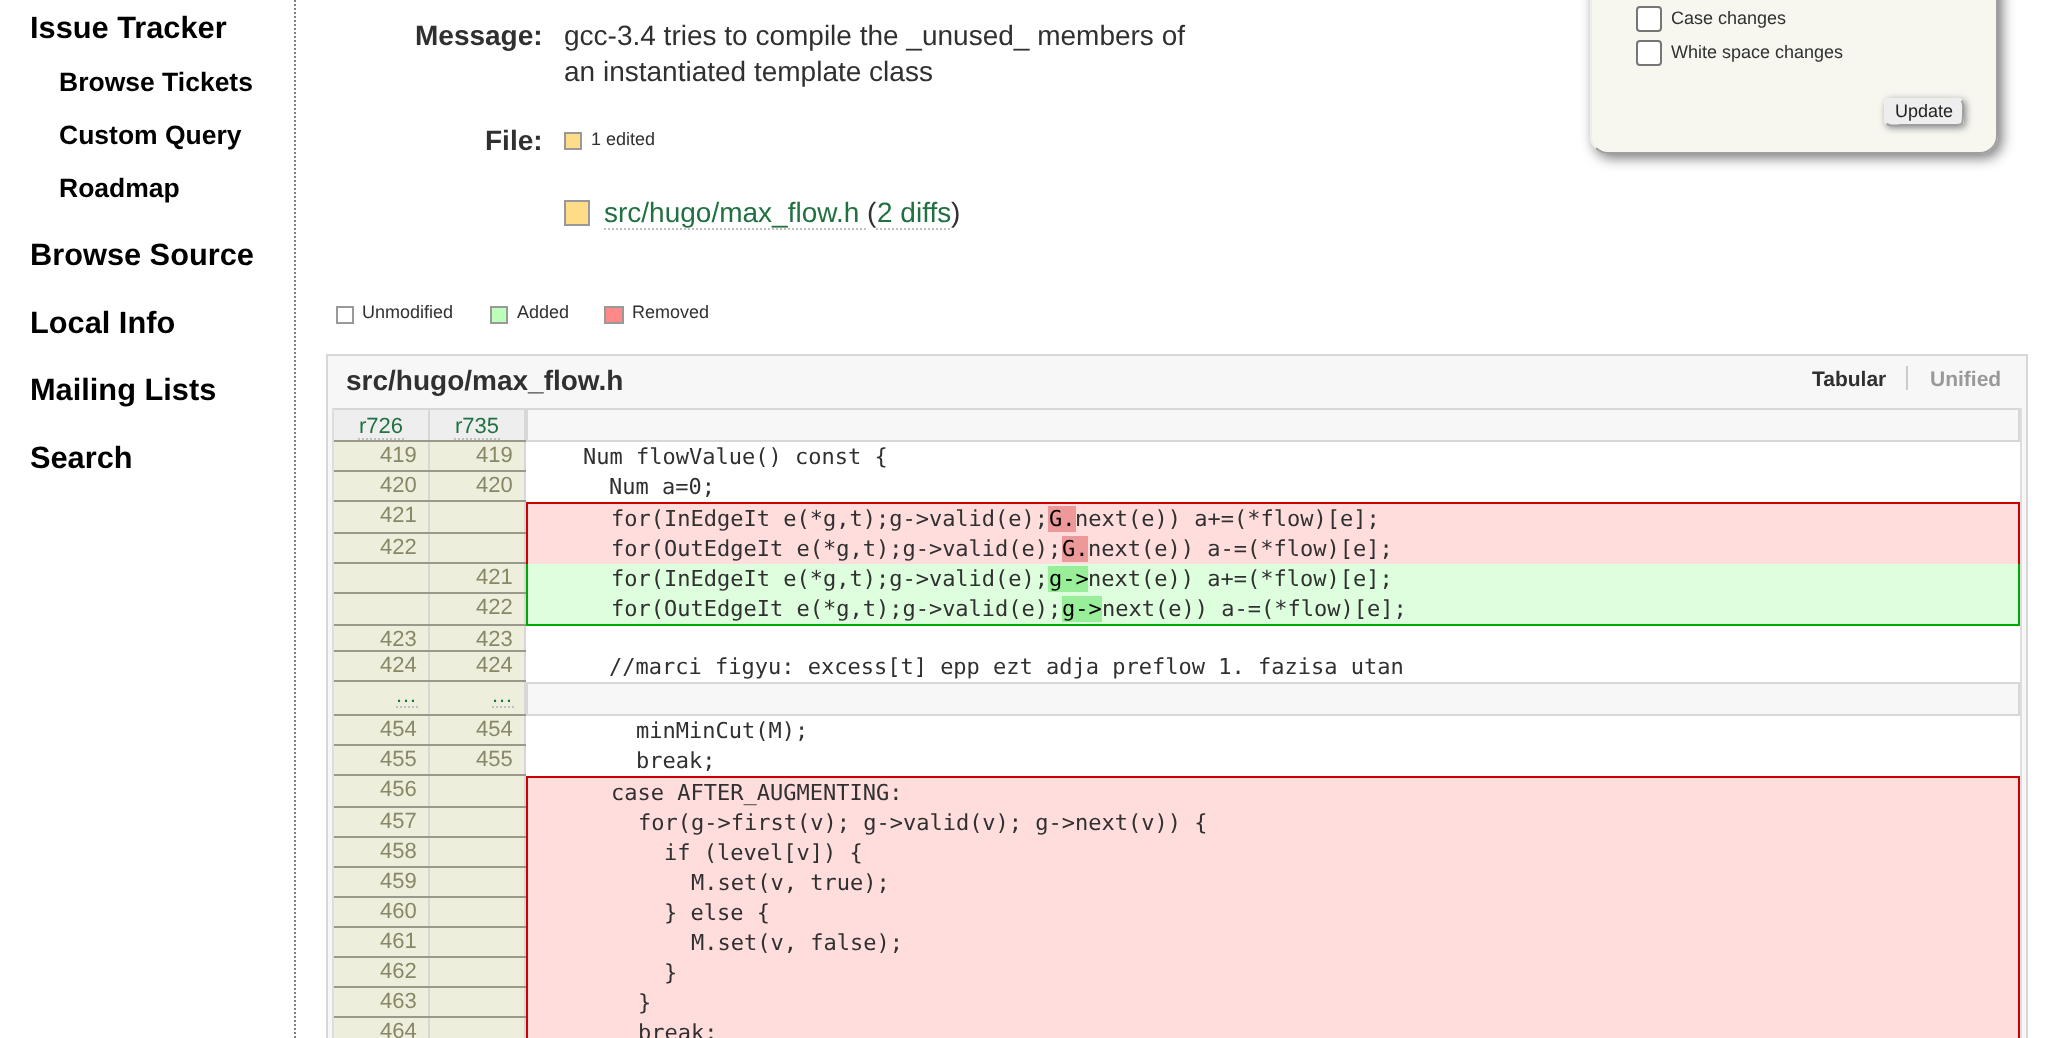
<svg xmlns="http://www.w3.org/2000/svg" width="2045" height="1038">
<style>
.a{font:bold 30.75px Liberation Sans;fill:#000}
.b{font:bold 26.5px Liberation Sans;fill:#000}
.c{font:bold 28px Liberation Sans;fill:#303030}
.d{font:28px Liberation Sans;fill:#303030}
.e{font:18px Liberation Sans;fill:#303030}
.f{font:28px Liberation Sans;fill:#207040}
.g{font:18px Liberation Sans;fill:#222}
.h{font:bold 21px Liberation Sans;fill:#303030}
.i{font:bold 21px Liberation Sans;fill:#999}
.j{font:22px Liberation Sans;fill:#207040}
.k{font:22px Liberation Sans;fill:#886}
.l{font:22px DejaVu Sans Mono;fill:#303030}
.m{font:22px DejaVu Sans Mono;fill:#000}
</style>
<rect width="100%" height="100%" fill="#fff"/>
<path fill="none" stroke="#808080" stroke-width="2" stroke-dasharray="2 2" d="M295-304v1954"/>
<path fill="#fd8" stroke="#999" stroke-width="2" d="M565 133h16v16H565z"/>
<path fill="#fd8" stroke="#999" stroke-width="2" d="M565 201h24v24H565z"/>
<path fill="none" stroke="#c0c0c0" stroke-width="2" stroke-dasharray="2 2" d="M604 229h264"/>
<path fill="none" stroke="#c0c0c0" stroke-width="2" stroke-dasharray="2 2" d="M876 229h74"/>
<rect fill="#777" filter="blur(6.5px)" x="1594" y="-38" width="408" height="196" rx="18"/>
<rect fill="#f7f7f0" x="1590" y="-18" width="408" height="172" rx="18"/>
<path fill="none" stroke="#9f9f9f" stroke-width="2" d="M1992-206c3 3 5 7.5 5 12v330c0 4.5-2 9-5 12c-3 3-7.5 5-12 5h-372c-4.5 0-9-2-12-5"/>
<path fill="none" stroke="#eee" stroke-width="2" d="M1596 148c-3-3-5-7.5-5-12v-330c0-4.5 2-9 5-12c3-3 7.5-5 12-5h372c4.5 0 9 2 12 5"/>
<rect fill="#fff" stroke="#767676" stroke-width="2" x="1637" y="7" width="24" height="24" rx="3"/>
<rect fill="#fff" stroke="#767676" stroke-width="2" x="1637" y="41" width="24" height="24" rx="3"/>
<rect fill="#888" filter="blur(3.5px)" x="1886" y="100" width="80" height="28" rx="5"/>
<rect fill="#eee" x="1884" y="98" width="80" height="28" rx="5"/>
<path fill="none" stroke="#9f9f9f" stroke-width="2" d="M1961.5 100.5c2.5 2.5 1.5 8.5 1.5 11.5c0 15 .5 13-16 13h-46c-.5 0-11.5 2-14.5-1.5"/>
<path fill="none" stroke="#eee" stroke-width="2" d="M1886.5 123.5c-2.5-2.5-1.5-8.5-1.5-11.5c0-15-.5-13 16-13h46c.5 0 11.5-2 14.5 1.5"/>
<path fill="none" stroke="#999" stroke-width="2" d="M337 307h16v16H337z"/>
<path fill="#bfb" stroke="#999" stroke-width="2" d="M491 307h16v16H491z"/>
<path fill="#f88" stroke="#999" stroke-width="2" d="M605 307h18v16H605z"/>
<path fill="#f7f7f7" stroke="#d7d7d7" stroke-width="2" d="M327 355h1700v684H327z"/>
<path fill="#ccc" d="M1906 366h2v24H1906z"/>
<path fill="#ddd" d="M2020 408h2v630H2020z"/>
<path fill="#ddd" d="M332 408h2v630H332z"/>
<path fill="#eee" d="M334 410h94v30H334z"/>
<path fill="#d7d7d7" d="M334 408h192v2H334z"/>
<path fill="#d7d7d7" d="M428 408h2v630H428z"/>
<path fill="#998" d="M334 440h96v2H334z"/>
<path fill="none" stroke="#c0c0c0" stroke-width="2" stroke-dasharray="2 2" d="M358 439h46"/>
<path fill="#eee" d="M430 410h94v30H430z"/>
<path fill="#d7d7d7" d="M524 408h2v630H524z"/>
<path fill="#998" d="M430 440h96v2H430z"/>
<path fill="none" stroke="#c0c0c0" stroke-width="2" stroke-dasharray="2 2" d="M454 439h46"/>
<path fill="none" stroke="#d7d7d7" stroke-width="2" d="M527 409h1492v32H527z"/>
<path fill="#eed" d="M334 442h94v28H334z"/>
<path fill="#998" d="M334 470h192v2H334z"/>
<path fill="#eed" d="M430 442h94v28H430z"/>
<path fill="#fff" d="M526 442h1494v60H526z"/>
<path fill="#eed" d="M334 472h94v28H334z"/>
<path fill="#998" d="M334 500h192v2H334z"/>
<path fill="#eed" d="M430 472h94v28H430z"/>
<path fill="#eed" d="M334 502h94v30H334z"/>
<path fill="#998" d="M334 532h192v2H334z"/>
<path fill="#eed" d="M430 502h94v30H430z"/>
<path fill="#fdd" d="M528 504h1490v60H528z"/>
<path fill="#c00" d="M526 502h1494v2H526z"/>
<path fill="#c00" d="M2018 502h2v62H2018z"/>
<path fill="#c00" d="M526 502h2v62H526z"/>
<path fill="#e99" d="M1048 506h28v26H1048z"/>
<path fill="#eed" d="M334 534h94v28H334z"/>
<path fill="#998" d="M334 562h192v2H334z"/>
<path fill="#eed" d="M430 534h94v28H430z"/>
<path fill="#e99" d="M1062 536h26v26H1062z"/>
<path fill="#eed" d="M334 564h94v28H334z"/>
<path fill="#998" d="M334 592h192v2H334z"/>
<path fill="#eed" d="M430 564h94v28H430z"/>
<path fill="#dfd" d="M528 564h1490v60H528z"/>
<path fill="#0a0" d="M2018 564h2v62H2018z"/>
<path fill="#0a0" d="M526 564h2v30H526z"/>
<path fill="#9e9" d="M1048 566h40v26H1048z"/>
<path fill="#eed" d="M334 594h94v30H334z"/>
<path fill="#998" d="M334 624h192v2H334z"/>
<path fill="#eed" d="M430 594h94v30H430z"/>
<path fill="#0a0" d="M526 624h1494v2H526z"/>
<path fill="#0a0" d="M526 594h2v32H526z"/>
<path fill="#9e9" d="M1062 596h40v26H1062z"/>
<path fill="#eed" d="M334 626h94v24H334z"/>
<path fill="#998" d="M334 650h192v2H334z"/>
<path fill="#eed" d="M430 626h94v24H430z"/>
<path fill="#fff" d="M526 626h1494v56H526z"/>
<path fill="#eed" d="M334 652h94v28H334z"/>
<path fill="#998" d="M334 680h192v2H334z"/>
<path fill="#eed" d="M430 652h94v28H430z"/>
<path fill="#eed" d="M334 682h94v32H334z"/>
<path fill="#998" d="M334 714h192v2H334z"/>
<path fill="none" stroke="#c0c0c0" stroke-width="2" stroke-dasharray="2 2" d="M396 707h22"/>
<path fill="#eed" d="M430 682h94v32H430z"/>
<path fill="none" stroke="#c0c0c0" stroke-width="2" stroke-dasharray="2 2" d="M492 707h22"/>
<path fill="none" stroke="#d7d7d7" stroke-width="2" d="M527 683h1492v32H527z"/>
<path fill="#eed" d="M334 716h94v28H334z"/>
<path fill="#998" d="M334 744h192v2H334z"/>
<path fill="#eed" d="M430 716h94v28H430z"/>
<path fill="#fff" d="M526 716h1494v60H526z"/>
<path fill="#eed" d="M334 746h94v28H334z"/>
<path fill="#998" d="M334 774h192v2H334z"/>
<path fill="#eed" d="M430 746h94v28H430z"/>
<path fill="#eed" d="M334 776h94v30H334z"/>
<path fill="#998" d="M334 806h192v2H334z"/>
<path fill="#eed" d="M430 776h94v30H430z"/>
<path fill="#fdd" d="M528 778h1490v260H528z"/>
<path fill="#c00" d="M526 776h1494v2H526z"/>
<path fill="#c00" d="M2018 776h2v262H2018z"/>
<path fill="#c00" d="M526 776h2v262H526z"/>
<path fill="#eed" d="M334 808h94v28H334z"/>
<path fill="#998" d="M334 836h192v2H334z"/>
<path fill="#eed" d="M430 808h94v28H430z"/>
<path fill="#eed" d="M334 838h94v28H334z"/>
<path fill="#998" d="M334 866h192v2H334z"/>
<path fill="#eed" d="M430 838h94v28H430z"/>
<path fill="#eed" d="M334 868h94v28H334z"/>
<path fill="#998" d="M334 896h192v2H334z"/>
<path fill="#eed" d="M430 868h94v28H430z"/>
<path fill="#eed" d="M334 898h94v28H334z"/>
<path fill="#998" d="M334 926h192v2H334z"/>
<path fill="#eed" d="M430 898h94v28H430z"/>
<path fill="#eed" d="M334 928h94v28H334z"/>
<path fill="#998" d="M334 956h192v2H334z"/>
<path fill="#eed" d="M430 928h94v28H430z"/>
<path fill="#eed" d="M334 958h94v28H334z"/>
<path fill="#998" d="M334 986h192v2H334z"/>
<path fill="#eed" d="M430 958h94v28H430z"/>
<path fill="#eed" d="M334 988h94v28H334z"/>
<path fill="#998" d="M334 1016h192v2H334z"/>
<path fill="#eed" d="M430 988h94v28H430z"/>
<path fill="#eed" d="M334 1018h94v20H334z"/>
<path fill="#eed" d="M430 1018h94v20H430z"/>
<text class="a" x="30" y="38">Issue Tracker</text>
<text class="b" x="59" y="91">Browse Tickets</text>
<text class="b" x="59" y="144">Custom Query</text>
<text class="b" x="59" y="197">Roadmap</text>
<text class="a" x="30" y="265">Browse Source</text>
<text class="a" x="30" y="333">Local Info</text>
<text class="a" x="30" y="400">Mailing Lists</text>
<text class="a" x="30" y="468">Search</text>
<text class="c" x="415" y="45">Message:</text>
<text class="d" x="564" y="45">gcc-3.4 tries to compile the _unused_ members of</text>
<text class="d" x="564" y="81">an instantiated template class</text>
<text class="c" x="485" y="150">File:</text>
<text class="e" x="591" y="145">1 edited</text>
<text class="f" x="604" y="222">src/hugo/max_flow.h</text>
<text class="d" x="867" y="222">(</text>
<text class="f" x="877" y="222">2 diffs</text>
<text class="d" x="951" y="222">)</text>
<text class="e" x="1671" y="24">Case changes</text>
<text class="e" x="1671" y="58">White space changes</text>
<text class="g" x="1895" y="117">Update</text>
<text class="e" x="362" y="318">Unmodified</text>
<text class="e" x="517" y="318">Added</text>
<text class="e" x="632" y="318">Removed</text>
<text class="c" x="346" y="390">src/hugo/max_flow.h</text>
<text class="h" x="1812" y="386">Tabular</text>
<text class="i" x="1930" y="386">Unified</text>
<text class="j" x="359" y="433">r726</text>
<text class="j" x="455" y="433">r735</text>
<text class="k" x="380" y="462">419</text>
<text class="k" x="476" y="462">419</text>
<text class="l" x="583" y="464">Num flowValue() const {</text>
<text class="k" x="380" y="492">420</text>
<text class="k" x="476" y="492">420</text>
<text class="l" x="609" y="494">Num a=0;</text>
<text class="k" x="380" y="522">421</text>
<text class="l" x="611" y="526">for(InEdgeIt e(*g,t);g-&gt;valid(e);</text>
<text class="m" x="1049" y="526">G.</text>
<text class="l" x="1075" y="526">next(e)) a+=(*flow)[e];</text>
<text class="k" x="380" y="554">422</text>
<text class="l" x="611" y="556">for(OutEdgeIt e(*g,t);g-&gt;valid(e);</text>
<text class="m" x="1062" y="556">G.</text>
<text class="l" x="1088" y="556">next(e)) a-=(*flow)[e];</text>
<text class="k" x="476" y="584">421</text>
<text class="l" x="611" y="586">for(InEdgeIt e(*g,t);g-&gt;valid(e);</text>
<text class="m" x="1049" y="586">g-&gt;</text>
<text class="l" x="1088" y="586">next(e)) a+=(*flow)[e];</text>
<text class="k" x="476" y="614">422</text>
<text class="l" x="611" y="616">for(OutEdgeIt e(*g,t);g-&gt;valid(e);</text>
<text class="m" x="1062" y="616">g-&gt;</text>
<text class="l" x="1102" y="616">next(e)) a-=(*flow)[e];</text>
<text class="k" x="380" y="646">423</text>
<text class="k" x="476" y="646">423</text>
<text class="k" x="380" y="672">424</text>
<text class="k" x="476" y="672">424</text>
<text class="l" x="609" y="674">//marci figyu: excess[t] epp ezt adja preflow 1. fazisa utan</text>
<text class="j" x="395" y="702">…</text>
<text class="j" x="491" y="702">…</text>
<text class="k" x="380" y="736">454</text>
<text class="k" x="476" y="736">454</text>
<text class="l" x="636" y="738">minMinCut(M);</text>
<text class="k" x="380" y="766">455</text>
<text class="k" x="476" y="766">455</text>
<text class="l" x="636" y="768">break;</text>
<text class="k" x="380" y="796">456</text>
<text class="l" x="611" y="800">case AFTER_AUGMENTING:</text>
<text class="k" x="380" y="828">457</text>
<text class="l" x="638" y="830">for(g-&gt;first(v); g-&gt;valid(v); g-&gt;next(v)) {</text>
<text class="k" x="380" y="858">458</text>
<text class="l" x="664" y="860">if (level[v]) {</text>
<text class="k" x="380" y="888">459</text>
<text class="l" x="691" y="890">M.set(v, true);</text>
<text class="k" x="380" y="918">460</text>
<text class="l" x="664" y="920">} else {</text>
<text class="k" x="380" y="948">461</text>
<text class="l" x="691" y="950">M.set(v, false);</text>
<text class="k" x="380" y="978">462</text>
<text class="l" x="664" y="980">}</text>
<text class="k" x="380" y="1008">463</text>
<text class="l" x="638" y="1010">}</text>
<text class="k" x="380" y="1038">464</text>
<text class="l" x="638" y="1040">break;</text>
</svg>
